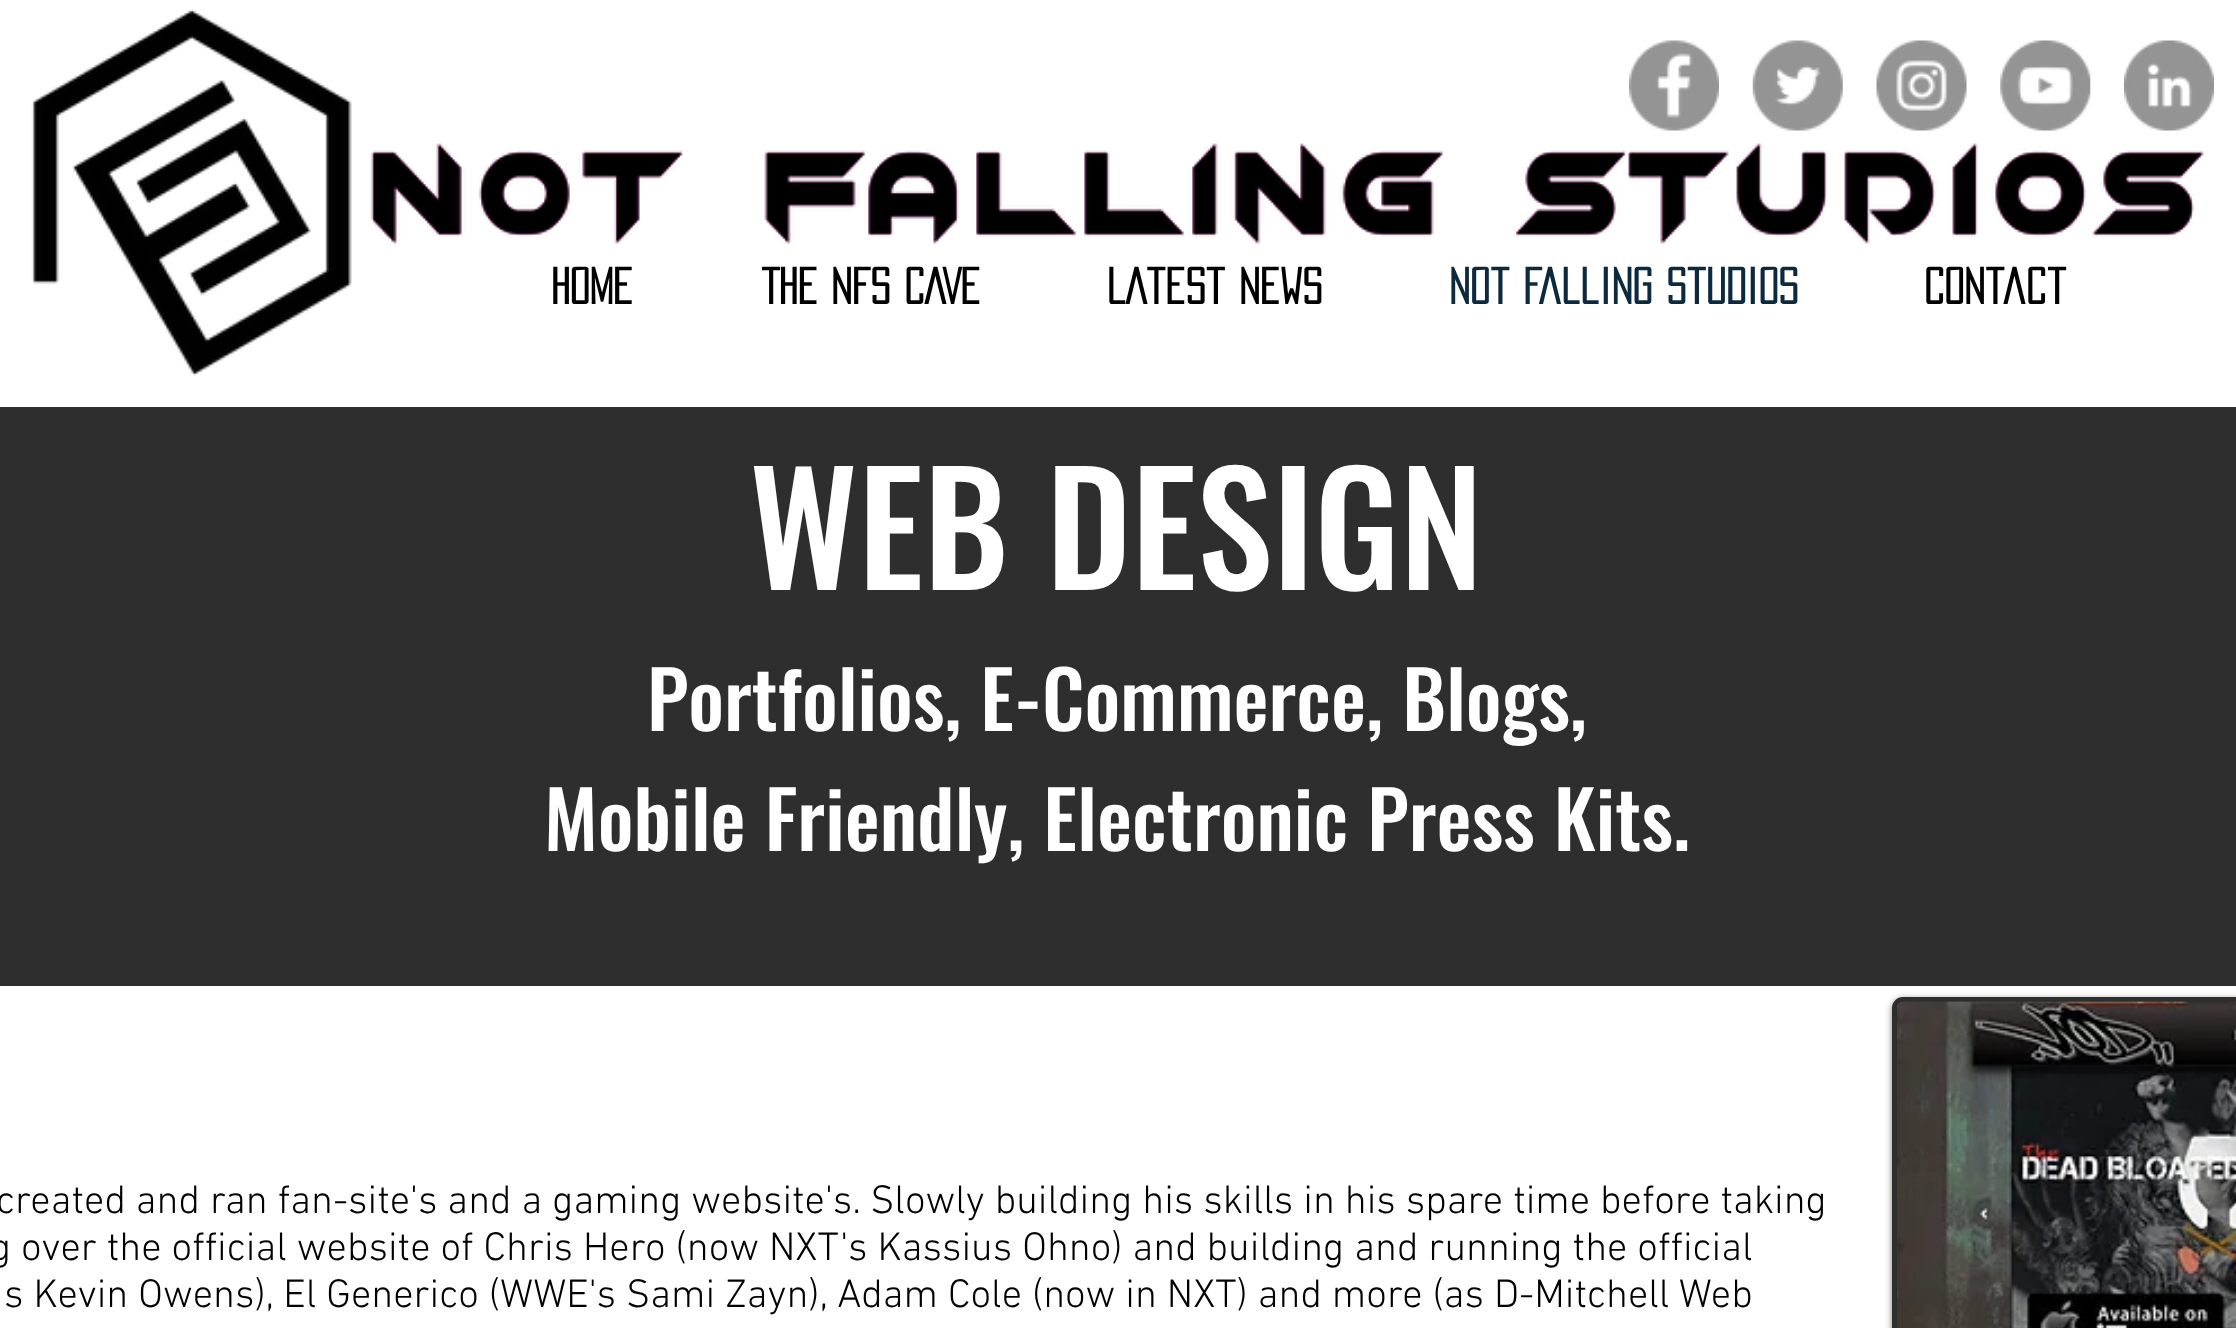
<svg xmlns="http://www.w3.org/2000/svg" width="2236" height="1328">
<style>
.a{font:bold 45px 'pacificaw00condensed';fill:#000}
.b{font:bold 45px 'pacificaw00condensed';fill:#0c293e}
.c{font:500 153px Oswald;fill:#fff}
.d{font:500 78.75px Oswald;fill:#fff}
.e{font:300 40.5px 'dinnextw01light';fill:#000}
</style>
<rect width="100%" height="100%" fill="#fff"/>
<image href="1.png" x="31" y="9" width="321" height="367"/>
<image href="2.png" x="370" y="143" width="1834" height="101"/>
<image href="3.png" x="1629" y="40" width="90" height="91"/>
<image href="4.png" x="1752" y="40" width="91" height="91"/>
<image href="5.png" x="1876" y="40" width="91" height="91"/>
<image href="6.png" x="2000" y="40" width="91" height="91"/>
<image href="7.png" x="2124" y="40" width="90" height="91"/>
<path fill="#2f2e2e" d="M0 407h2236v579H0z"/>
<rect fill="#00000080" filter="blur(3.5px)" x="1892" y="999" width="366" height="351" rx="11"/>
<rect fill="none" stroke="#2f2e2e" stroke-width="5" x="1894.5" y="999.5" width="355" height="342" rx="8.5"/>
<image href="8.png" x="1897" y="1001" width="339" height="327"/>
<text class="a" x="551" y="304">Home</text>
<text class="a" x="762" y="304">THE NFS CAVE</text>
<text class="a" x="1107" y="304">Latest News</text>
<text class="b" x="1449" y="304">Not Falling Studios</text>
<text class="a" x="1924" y="304">Contact</text>
<text class="c" x="749" y="590">WEB DESIGN</text>
<text class="d" x="647" y="731">Portfolios, E-Commerce, Blogs,</text>
<text class="d" x="544" y="851">Mobile Friendly, Electronic Press Kits.</text>
<text class="e" x="-4" y="1213">created and ran fan-site's and a gaming website's. Slowly building his skills in his spare time before taking</text>
<text class="e" x="-10" y="1260">g over the official website of Chris Hero (now NXT's Kassius Ohno) and building and running the official</text>
<text class="e" x="4" y="1307">s Kevin Owens), El Generico (WWE's Sami Zayn), Adam Cole (now in NXT) and more (as D-Mitchell Web</text>
</svg>
